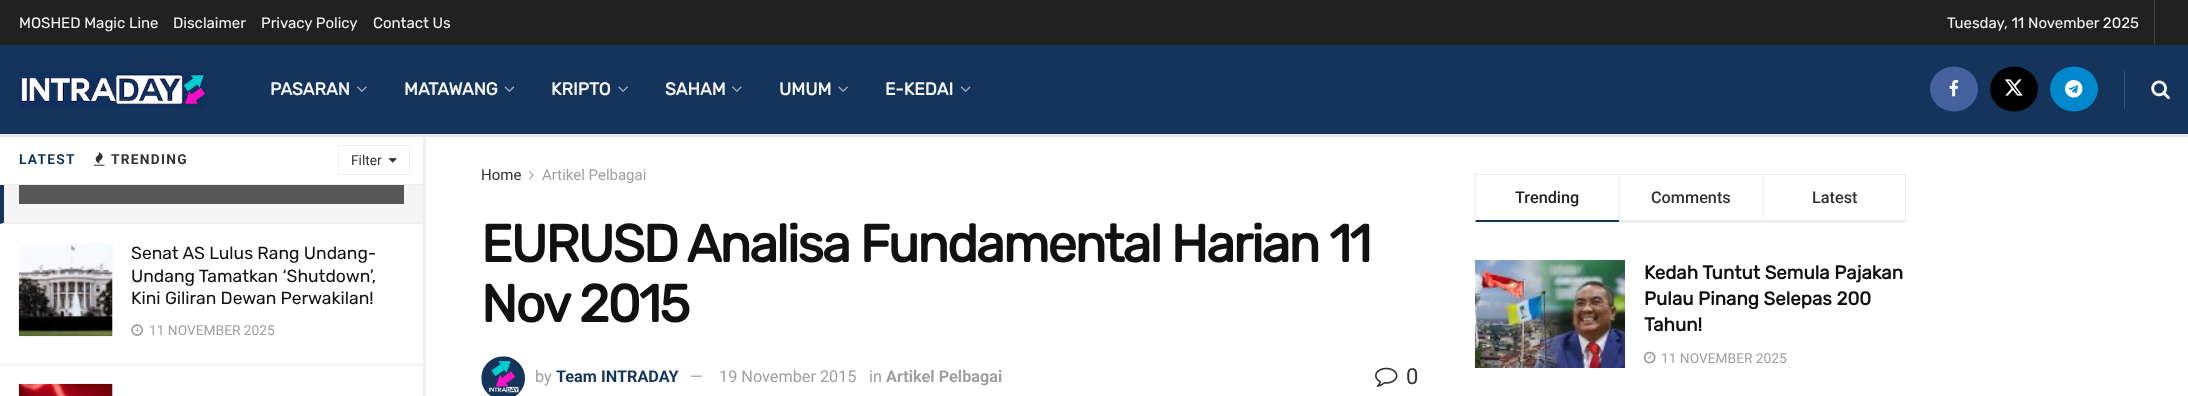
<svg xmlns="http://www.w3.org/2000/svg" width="2188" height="396">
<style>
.a{font:300 15px Rubik;fill:#f5f5f5}
.b{font:bold 17.5px Rubik;fill:#f5f5f5}
.c{font:15px Roboto;fill:#323232}
.d{font:15px Roboto;fill:#a0a0a0}
.e{font:bold 52.5px Rubik;letter-spacing:-2.1px;fill:#111}
.f{font:16.25px Roboto;fill:#a0a0a0}
.g{font:bold 16.25px Roboto;fill:#15345c}
.h{font:bold 16.25px Roboto;fill:#a0a0a0}
.i{font:22px Roboto;fill:#323232}
.j{font:500 16.25px Roboto;fill:#212121}
.k{font:500 16.25px Roboto;fill:#323232}
.l{font:bold 18.75px Rubik;fill:#111}
.m{font:13.75px Roboto;fill:#a0a0a0}
.n{font:bold 13.75px Roboto;letter-spacing:1.25px;fill:#15345c}
.o{font:bold 13.75px Roboto;letter-spacing:1.25px;fill:#323232}
.p{font:13.75px Roboto;fill:#323232}
.q{font:300 17.5px Rubik;fill:#111}
</style>
<defs>
<linearGradient id="g1" gradientUnits="userSpaceOnUse" x1="211" y1="75" x2="211" y2="204"><stop offset="0" stop-color="#f5f5f5"/><stop offset="0.7" stop-color="#565656"/></linearGradient>
</defs>
<rect width="100%" height="100%" fill="#fff"/>
<path fill="#212121" d="M0 0h2188v45H0z"/>
<path fill="#424242" d="M2154 0h1v45H2154z"/>
<path fill="#15345c" d="M0 45h2188v89H0z"/>
<path fill="#eee" d="M423 136h3v260H423z"/>
<path fill="#e8e8e8" d="M0 134h2188v3H0z"/>
<image href="1.png" x="19" y="71" width="187" height="37"/>
<image href="2.png" x="357" y="86" width="10" height="6"/>
<image href="3.png" x="504" y="86" width="11" height="6"/>
<image href="4.png" x="618" y="86" width="10" height="6"/>
<image href="2.png" x="732" y="86" width="10" height="6"/>
<image href="4.png" x="838" y="86" width="10" height="6"/>
<image href="5.png" x="960" y="86" width="11" height="6"/>
<ellipse fill="#45629f" cx="1954" cy="89" rx="24" ry="22.5"/>
<image href="6.png" x="1949" y="80" width="10" height="17"/>
<ellipse fill="#000" cx="2014" cy="89" rx="24" ry="22.5"/>
<image href="7.png" x="2004" y="79" width="19" height="17"/>
<ellipse fill="#08c" cx="2074" cy="89" rx="24" ry="22.5"/>
<image href="8.png" x="2065" y="80" width="18" height="18"/>
<path fill="#385274" d="M2124 71h1v38H2124z"/>
<image href="9.png" x="2151" y="80" width="19" height="20"/>
<image href="10.png" x="528" y="171" width="6" height="9"/>
<image href="11.png" x="481" y="356" width="44" height="40"/>
<image href="12.png" x="1375" y="367" width="23" height="20"/>
<path fill="#eee" d="M1475 174h431v1H1475z"/>
<path fill="#15345c" d="M1619 222h-144l1-2h143z"/>
<path fill="#eee" d="M1475 222v-48l1 1v45z"/>
<path fill="#eee" d="M1619 220h144v3H1619z"/>
<path fill="#eee" d="M1619 174h1v49H1619z"/>
<path fill="#eee" d="M1905 174h1v49H1905z"/>
<path fill="#eee" d="M1763 220h143v3H1763z"/>
<path fill="#eee" d="M1763 174h1v49H1763z"/>
<image href="13.png" x="1475" y="260" width="150" height="108"/>
<image href="14.png" x="1643" y="351" width="13" height="13"/>
<path fill="#eee" d="M0 184h423v1H0z"/>
<image href="15.png" x="93" y="152" width="12" height="14"/>
<path fill="none" stroke="#eee" d="M338.5 145.5h71v29H338.5z"/>
<image href="16.png" x="388" y="158" width="9" height="5"/>
<path fill="#f5f5f5" d="M0 185h423v39H0z"/>
<path fill="#eee" d="M422 224h-422l4-2h418z"/>
<path fill="#15345c" d="M0 224v-39h4v37.5z"/>
<path fill="url(#g1)" d="M19 185h385v19H19z"/>
<path fill="#eee" d="M0 364h423v1H0z"/>
<path fill="#f7f7f7" d="M112 243h1v93H112z"/>
<image href="17.png" x="18" y="243" width="95" height="94"/>
<image href="18.png" x="131" y="324" width="12" height="12"/>
<path fill="#f7f7f7" d="M112 384h1v12H112z"/>
<image href="19.png" x="18" y="383" width="95" height="13"/>
<text class="a" x="19" y="28">MOSHED Magic Line</text>
<text class="a" x="173" y="28">Disclaimer</text>
<text class="a" x="261" y="28">Privacy Policy</text>
<text class="a" x="373" y="28">Contact Us</text>
<text class="a" x="1947" y="28">Tuesday, 11 November 2025</text>
<text class="b" x="270" y="95">PASARAN</text>
<text class="b" x="404" y="95">MATAWANG</text>
<text class="b" x="551" y="95">KRIPTO</text>
<text class="b" x="665" y="95">SAHAM</text>
<text class="b" x="779" y="95">UMUM</text>
<text class="b" x="885" y="95">E-KEDAI</text>
<text class="c" x="481" y="180">Home</text>
<text class="d" x="542" y="180">Artikel Pelbagai</text>
<text class="e" x="481" y="262">EURUSD Analisa Fundamental Harian 11</text>
<text class="e" x="481" y="322">Nov 2015</text>
<text class="f" x="535" y="382">by</text>
<text class="g" x="556" y="382">Team INTRADAY</text>
<text class="f" x="690" y="382">—</text>
<text class="f" x="719" y="382">19 November 2015</text>
<text class="f" x="869" y="382">in</text>
<text class="h" x="886" y="382">Artikel Pelbagai</text>
<text class="i" x="1406" y="384">0</text>
<text class="j" x="1515" y="203">Trending</text>
<text class="k" x="1651" y="203">Comments</text>
<text class="k" x="1812" y="203">Latest</text>
<text class="l" x="1644" y="279">Kedah Tuntut Semula Pajakan</text>
<text class="l" x="1644" y="305">Pulau Pinang Selepas 200</text>
<text class="l" x="1644" y="331">Tahun!</text>
<text class="m" x="1661" y="363">11 NOVEMBER 2025</text>
<text class="n" x="19" y="164">LATEST</text>
<text class="o" x="111" y="164">TRENDING</text>
<text class="p" x="351" y="165">Filter</text>
<text class="q" x="131" y="259">Senat AS Lulus Rang Undang-</text>
<text class="q" x="131" y="282">Undang Tamatkan ‘Shutdown’,</text>
<text class="q" x="131" y="304">Kini Giliran Dewan Perwakilan!</text>
<text class="m" x="149" y="335">11 NOVEMBER 2025</text>
</svg>
